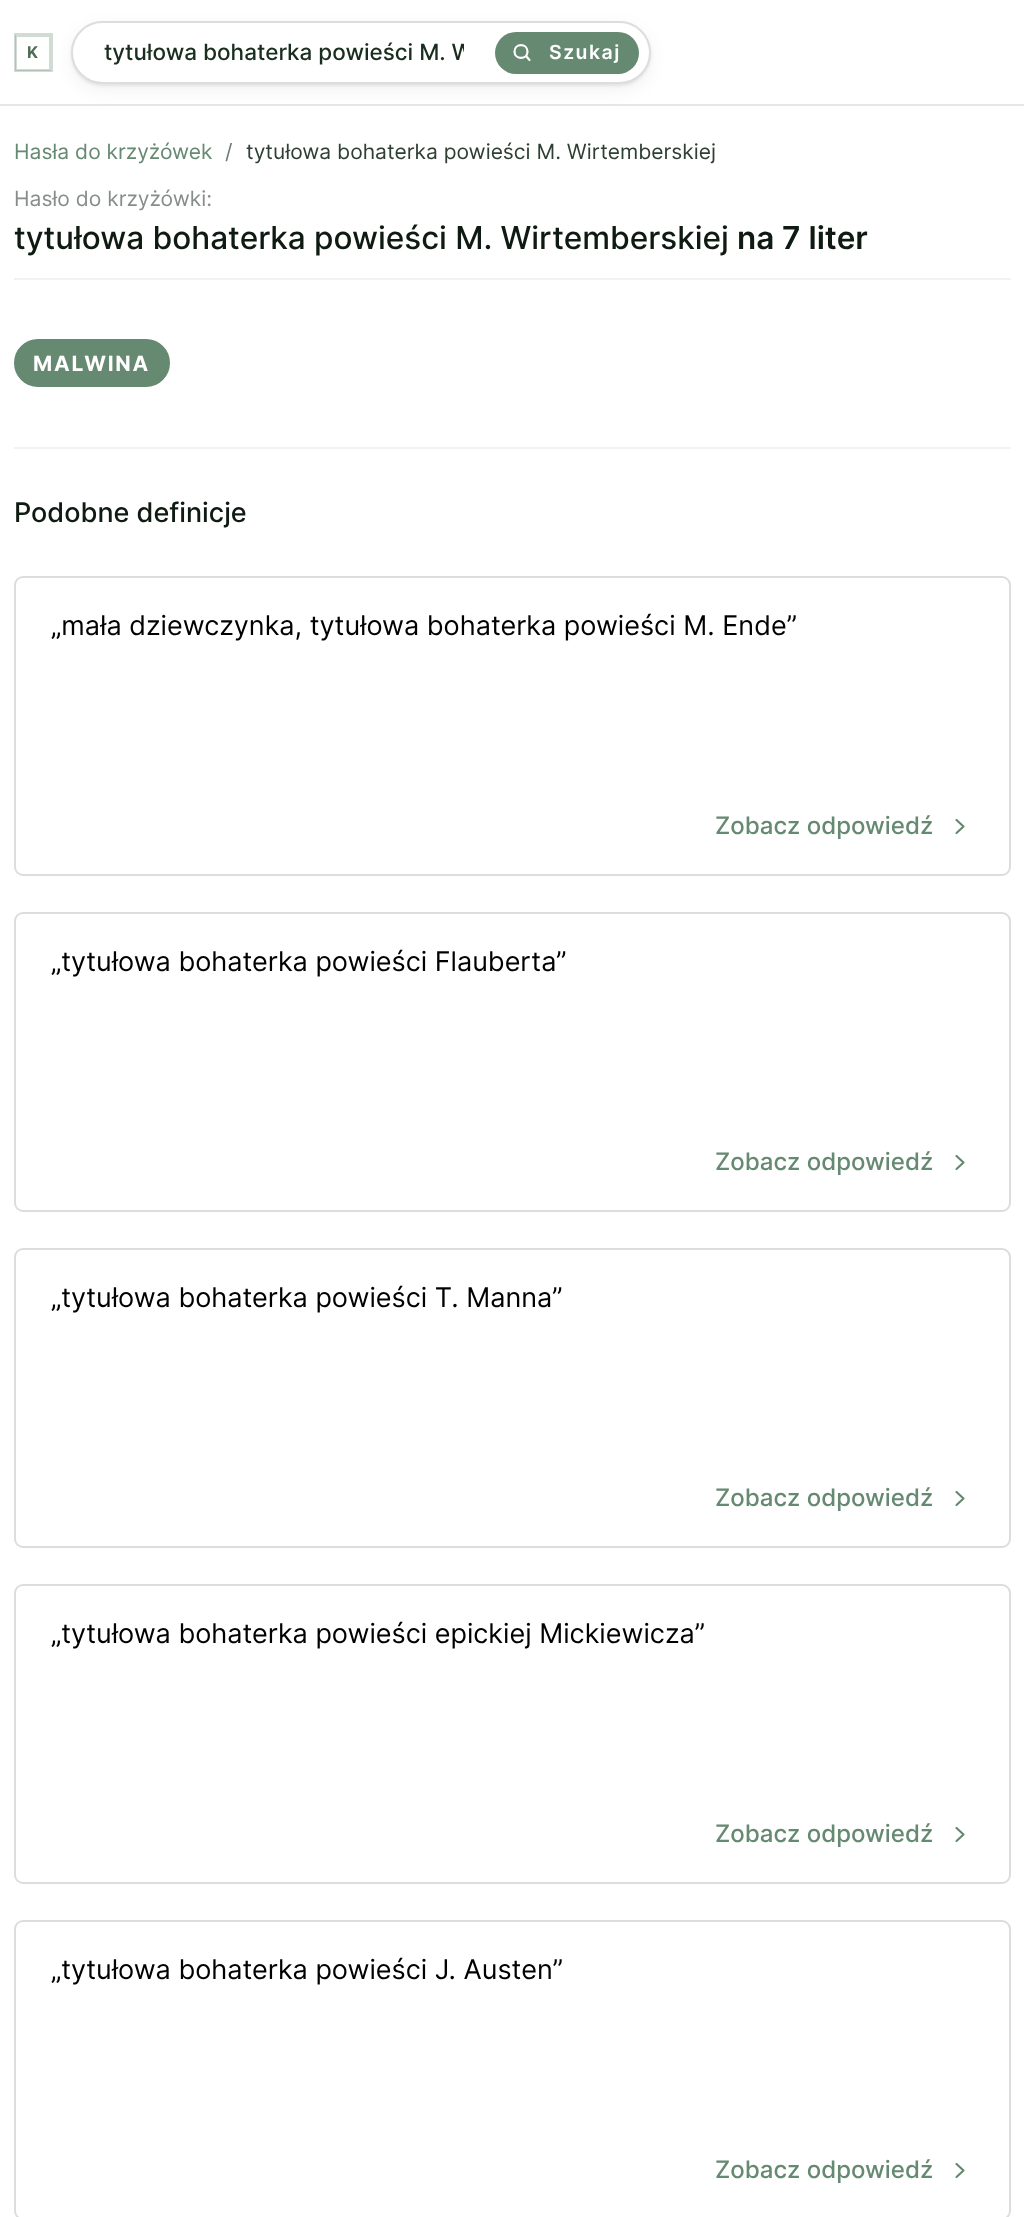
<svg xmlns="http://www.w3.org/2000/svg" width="1024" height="2217">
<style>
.a{font:bold 16px Inter;fill:#506c59}
.b{font:500 22.5px Inter;fill:#1a2e20}
.c{font:600 19.5px Inter;letter-spacing:1.5px;fill:#fff}
.d{font:21px Inter;fill:#668971}
.e{font:21px Inter;fill:#6d7971}
.f{font:21px Inter;fill:#2e3f34}
.g{font:21px Inter;fill:#878d89}
.h{font:500 31.5px Inter;fill:#0e1a12}
.i{font:600 31.5px Inter;fill:#0e1a12}
.j{font:bold 21px Inter;letter-spacing:1.75px;fill:#fff}
.k{font:500 27px Inter;fill:#0e1a12}
.l{font:27px Inter;fill:#000}
.m{font:500 24px Inter;fill:#668971}
</style>
<defs>
<clipPath id="clip1"><path d="M104 38h360v28H104z"/></clipPath>
</defs>
<rect width="100%" height="100%" fill="#fff"/>
<path fill="#e6e6e6" d="M0 104h1024v2H0z"/>
<path fill="none" stroke="#d1dcd4" stroke-width="2" d="M15 34h37v37H15z"/>
<path fill="none" stroke="#6689714d" stroke-width="2" d="M16 36h34v34H16z"/>
<rect fill="#0000000d" filter="blur(9px)" x="71" y="27" width="580" height="63" rx="31.5"/>
<rect fill="#00000014" filter="blur(1.5px)" x="71" y="23" width="580" height="63" rx="31.5"/>
<rect fill="#fff" stroke="#ddd" stroke-width="2" x="72" y="22" width="578" height="61" rx="30.5"/>
<rect fill="#668971" x="495" y="32" width="144" height="42" rx="21"/>
<path fill="none" stroke="#fff" stroke-width="2.2" stroke-linecap="round" stroke-linejoin="round" d="M526 56l3.5 4m-2-8.5c0 8.5-13 8.5-13 0c0-8.5 13-8.5 13 0z"/>
<path fill="#f2f2f2" d="M14 278h997v2H14z"/>
<path fill="#f2f2f2" d="M14 447h997v2H14z"/>
<rect fill="#668971" stroke="#668971" stroke-width="2" x="15" y="340" width="154" height="46" rx="23"/>
<rect fill="none" stroke="#ddd" stroke-width="2" x="15" y="577" width="995" height="298" rx="8"/>
<path fill="none" stroke="#668971" stroke-width="2.2" stroke-linecap="round" stroke-linejoin="round" d="M956.5 833l7-6.5l-7-6.5"/>
<rect fill="none" stroke="#ddd" stroke-width="2" x="15" y="913" width="995" height="298" rx="8"/>
<path fill="none" stroke="#668971" stroke-width="2.2" stroke-linecap="round" stroke-linejoin="round" d="M956.5 1169l7-6.5l-7-6.5"/>
<rect fill="none" stroke="#ddd" stroke-width="2" x="15" y="1249" width="995" height="298" rx="8"/>
<path fill="none" stroke="#668971" stroke-width="2.2" stroke-linecap="round" stroke-linejoin="round" d="M956.5 1505l7-6.5l-7-6.5"/>
<rect fill="none" stroke="#ddd" stroke-width="2" x="15" y="1585" width="995" height="298" rx="8"/>
<path fill="none" stroke="#668971" stroke-width="2.2" stroke-linecap="round" stroke-linejoin="round" d="M956.5 1841l7-6.5l-7-6.5"/>
<rect fill="none" stroke="#ddd" stroke-width="2" x="15" y="1921" width="995" height="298" rx="8"/>
<path fill="none" stroke="#668971" stroke-width="2.2" stroke-linecap="round" stroke-linejoin="round" d="M956.5 2177l7-6.5l-7-6.5"/>
<text class="a" x="27" y="58">K</text>
<g clip-path="url(#clip1)">
<text class="b" x="104" y="60">tytułowa bohaterka powieści M. W</text>
</g>
<text class="c" x="549" y="59">Szukaj</text>
<text class="d" x="14" y="159">Hasła do krzyżówek</text>
<text class="e" x="225" y="159">/</text>
<text class="f" x="246" y="159">tytułowa bohaterka powieści M. Wirtemberskiej</text>
<text class="g" x="14" y="206">Hasło do krzyżówki:</text>
<text class="h" x="14" y="249">tytułowa bohaterka powieści M. Wirtemberskiej</text>
<text class="i" x="737" y="249">na 7 liter</text>
<text class="j" x="33" y="371">MALWINA</text>
<text class="k" x="14" y="522">Podobne definicje</text>
<text class="l" x="51" y="635">„mała dziewczynka, tytułowa bohaterka powieści M. Ende”</text>
<text class="m" x="715" y="834">Zobacz odpowiedź</text>
<text class="l" x="51" y="971">„tytułowa bohaterka powieści Flauberta”</text>
<text class="m" x="715" y="1170">Zobacz odpowiedź</text>
<text class="l" x="51" y="1307">„tytułowa bohaterka powieści T. Manna”</text>
<text class="m" x="715" y="1506">Zobacz odpowiedź</text>
<text class="l" x="51" y="1643">„tytułowa bohaterka powieści epickiej Mickiewicza”</text>
<text class="m" x="715" y="1842">Zobacz odpowiedź</text>
<text class="l" x="51" y="1979">„tytułowa bohaterka powieści J. Austen”</text>
<text class="m" x="715" y="2178">Zobacz odpowiedź</text>
</svg>
